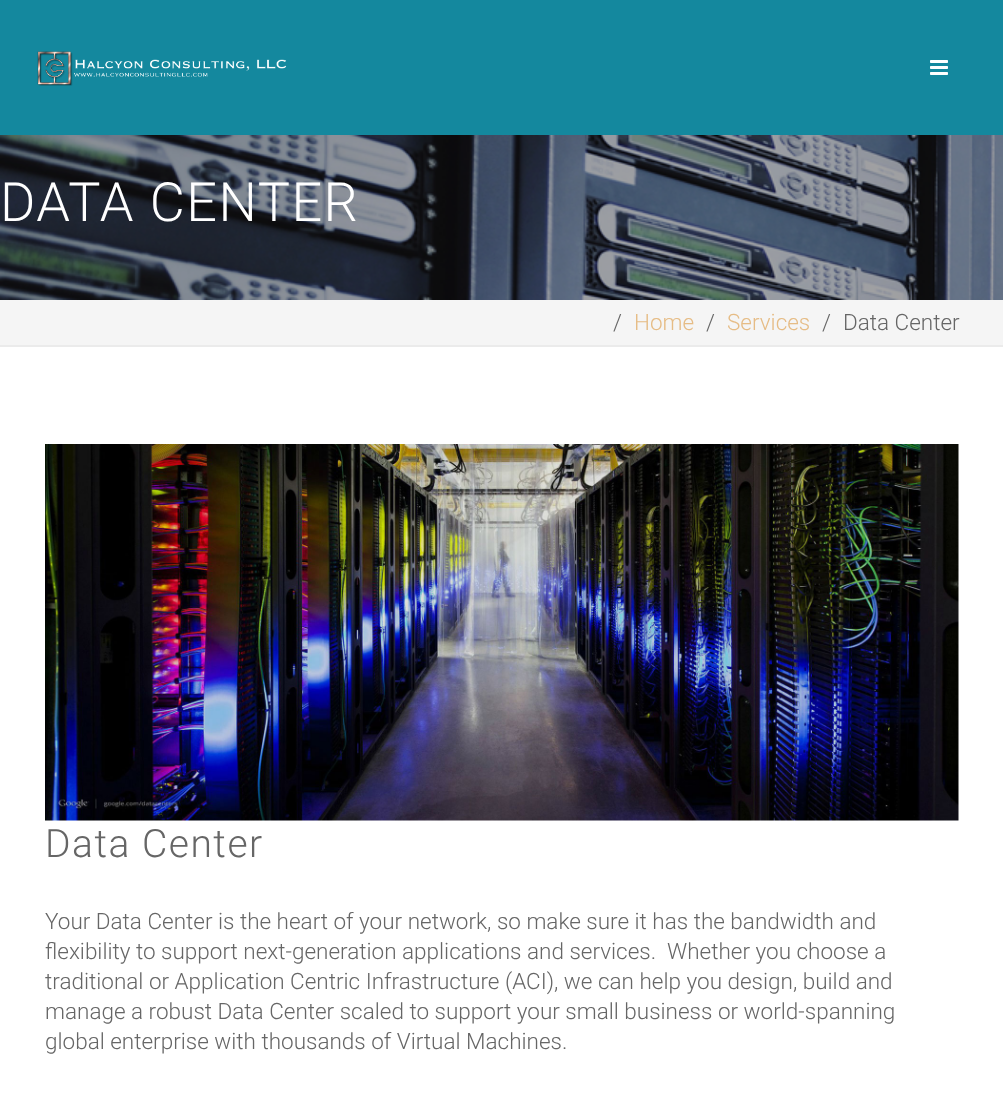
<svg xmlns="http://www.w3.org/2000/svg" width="1003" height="1093">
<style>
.a{font:300 54px Roboto;letter-spacing:1.5px;fill:#fff}
.b{font:300 22.5px Roboto;fill:#666}
.c{font:300 22.5px Roboto;fill:#e6bc85}
.d{font:300 39px Roboto;letter-spacing:1.5px;fill:#666}
</style>
<rect width="100%" height="100%" fill="#fff"/>
<path fill="#14889e" d="M0 0h1003v135H0z"/>
<image href="1.png" x="37" y="51" width="250" height="35"/>
<image href="2.png" x="930" y="60" width="18" height="15"/>
<path fill="#f5f5f5" d="M0 300h1003v45H0z"/>
<path fill="#ebebeb" d="M0 345h1003v2H0z"/>
<image href="3.png" x="0" y="135" width="1003" height="165"/>
<image href="4.png" x="45" y="444" width="914" height="377"/>
<text class="a" x="0" y="221">DATA CENTER</text>
<text class="b" x="613" y="330">/</text>
<text class="c" x="634" y="330">Home</text>
<text class="b" x="706" y="330">/</text>
<text class="c" x="727" y="330">Services</text>
<text class="b" x="822" y="330">/</text>
<text class="b" x="843" y="330">Data Center</text>
<text class="d" x="45" y="857">Data Center</text>
<text class="b" x="45" y="929">Your Data Center is the heart of your network, so make sure it has the bandwidth and</text>
<text class="b" xml:space="preserve" x="45" y="959">flexibility to support next-generation applications and services.  Whether you choose a</text>
<text class="b" x="45" y="989">traditional or Application Centric Infrastructure (ACI), we can help you design, build and</text>
<text class="b" x="45" y="1019">manage a robust Data Center scaled to support your small business or world-spanning</text>
<text class="b" x="45" y="1049">global enterprise with thousands of Virtual Machines.</text>
</svg>
